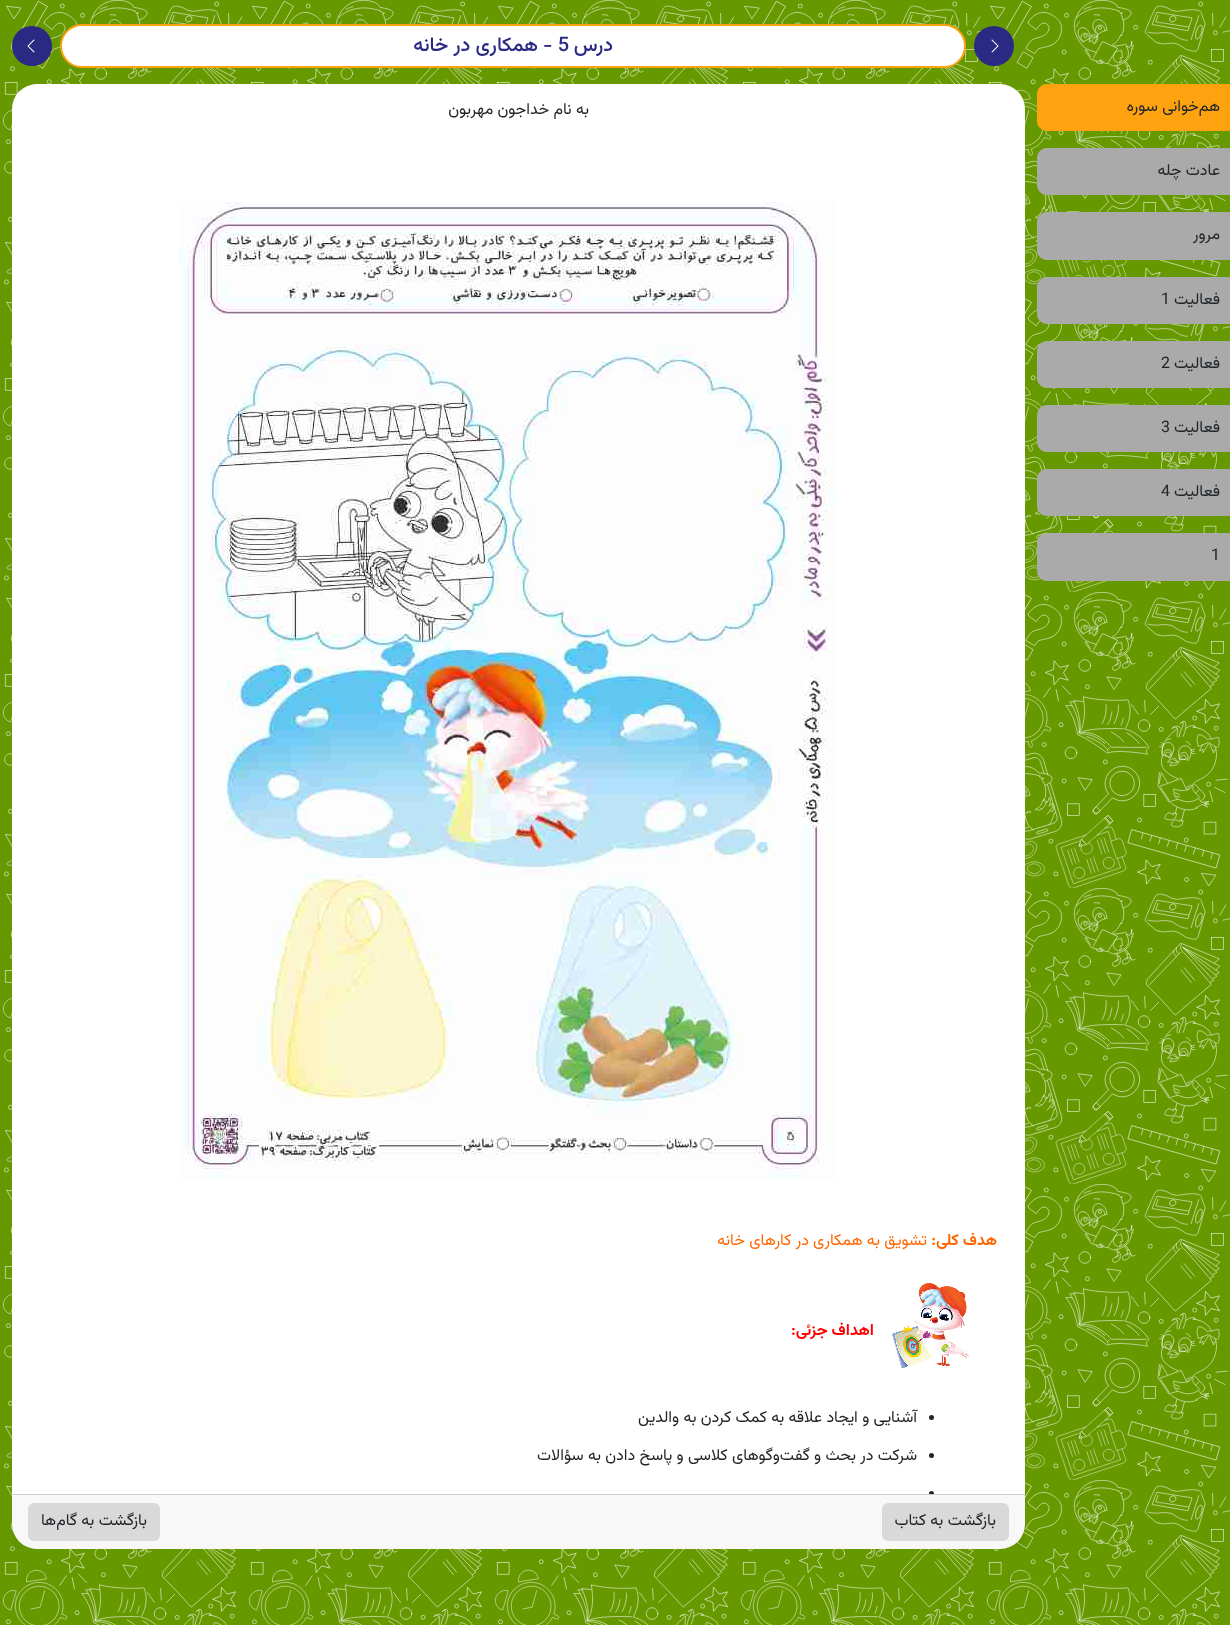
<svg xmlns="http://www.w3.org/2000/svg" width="1230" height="1625">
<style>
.a{font:500 20px Vazirmatn;direction:rtl;fill:#2a2a84}
.b{font:500 20px Vazirmatn;fill:#2a2a84}
.c{font:16px Vazirmatn;direction:rtl;fill:#212529}
.d{font:16px Vazirmatn;fill:#212529}
.e{font:bold 16px Vazirmatn;direction:rtl;fill:#f60}
.f{font:16px Vazirmatn;direction:rtl;fill:#f60}
.g{font:bold 16px Vazirmatn;direction:rtl;fill:#f00}
</style>
<defs>
<clipPath id="clip1"><path d="M12 138h1013v1356H12z"/></clipPath>
</defs>
<rect width="100%" height="100%" fill="#690"/>
<image href="1.png" x="2" y="0" width="1228" height="1625"/>
<circle fill="#2a2a84" cx="994" cy="46" r="20"/>
<image href="2.png" x="991" y="39" width="8" height="14"/>
<rect fill="#fff" stroke="#ffa210" stroke-width="2" x="61" y="25" width="904" height="42" rx="21"/>
<circle fill="#2a2a84" cx="32" cy="46" r="20"/>
<image href="3.png" x="27" y="39" width="8" height="14"/>
<path fill="#ffa210" d="M1047 84h183v47h-183c-5.5 0-10-4.5-10-10v-27c0-5.5 4.5-10 10-10z"/>
<path fill="#aaa" d="M1047 148h183v47h-183c-5.5 0-10-4.5-10-10v-27c0-5.5 4.5-10 10-10z"/>
<path fill="#aaa" d="M1047 212h183v48h-183c-5.5 0-10-4.5-10-10v-28c0-5.5 4.5-10 10-10z"/>
<path fill="#aaa" d="M1047 277h183v47h-183c-5.5 0-10-4.5-10-10v-27c0-5.5 4.5-10 10-10z"/>
<path fill="#aaa" d="M1047 341h183v47h-183c-5.5 0-10-4.5-10-10v-27c0-5.5 4.5-10 10-10z"/>
<path fill="#aaa" d="M1047 405h183v47h-183c-5.5 0-10-4.5-10-10v-27c0-5.5 4.5-10 10-10z"/>
<path fill="#aaa" d="M1047 469h183v47h-183c-5.5 0-10-4.5-10-10v-27c0-5.5 4.5-10 10-10z"/>
<path fill="#aaa" d="M1047 533h183v48h-183c-5.5 0-10-4.5-10-10v-28c0-5.5 4.5-10 10-10z"/>
<rect fill="#fff" x="12" y="84" width="1013" height="1465" rx="25"/>
<image href="4.png" x="178" y="202" width="658" height="977"/>
<image href="5.png" x="892" y="1283" width="77" height="86"/>
<circle fill="#212529" cx="931.5" cy="1417.5" r="2.5"/>
<circle fill="#212529" cx="931.5" cy="1455.5" r="2.5"/>
<path fill="#21252908" d="M12 1495h1013v54H12z"/>
<path fill="#cdcdcd" d="M12 1494h1013v1H12z"/>
<g clip-path="url(#clip1)">
<circle fill="#212529" cx="931.5" cy="1493.5" r="2.5"/>
</g>
<rect fill="#d9d9d9" x="882" y="1503" width="127" height="38" rx="6"/>
<rect fill="#d9d9d9" x="28" y="1503" width="132" height="38" rx="6"/>
<text class="a" x="613" y="51">درس</text>
<text class="b" x="543" y="51">- 5</text>
<text class="a" x="538" y="51">همکاری در خانه</text>
<text class="c" x="1220" y="111">هم‌خوانی سوره</text>
<text class="c" x="1220" y="175">عادت چله</text>
<text class="c" x="1220" y="239">مرور</text>
<text class="c" x="1220" y="304">فعالیت</text>
<text class="d" x="1161" y="304">1</text>
<text class="c" x="1220" y="368">فعالیت</text>
<text class="d" x="1161" y="368">2</text>
<text class="c" x="1220" y="432">فعالیت</text>
<text class="d" x="1161" y="432">3</text>
<text class="c" x="1220" y="496">فعالیت</text>
<text class="d" x="1161" y="496">4</text>
<text class="d" x="1211" y="560">1</text>
<text class="c" x="589" y="114">به نام خداجون مهربون</text>
<text class="e" x="997" y="1245">هدف کلی:</text>
<text class="f" x="927" y="1245">تشویق به همکاری در کارهای خانه</text>
<text class="g" x="874" y="1335">اهداف جزئی:</text>
<text class="c" x="917" y="1422">آشنایی و ایجاد علاقه به کمک کردن به والدین</text>
<text class="c" x="917" y="1460">شرکت در بحث و گفت‌وگوهای کلاسی و پاسخ دادن به سؤالات</text>
<text class="c" x="996" y="1525">بازگشت به کتاب</text>
<text class="c" x="147" y="1525">بازگشت به گام‌ها</text>
</svg>
